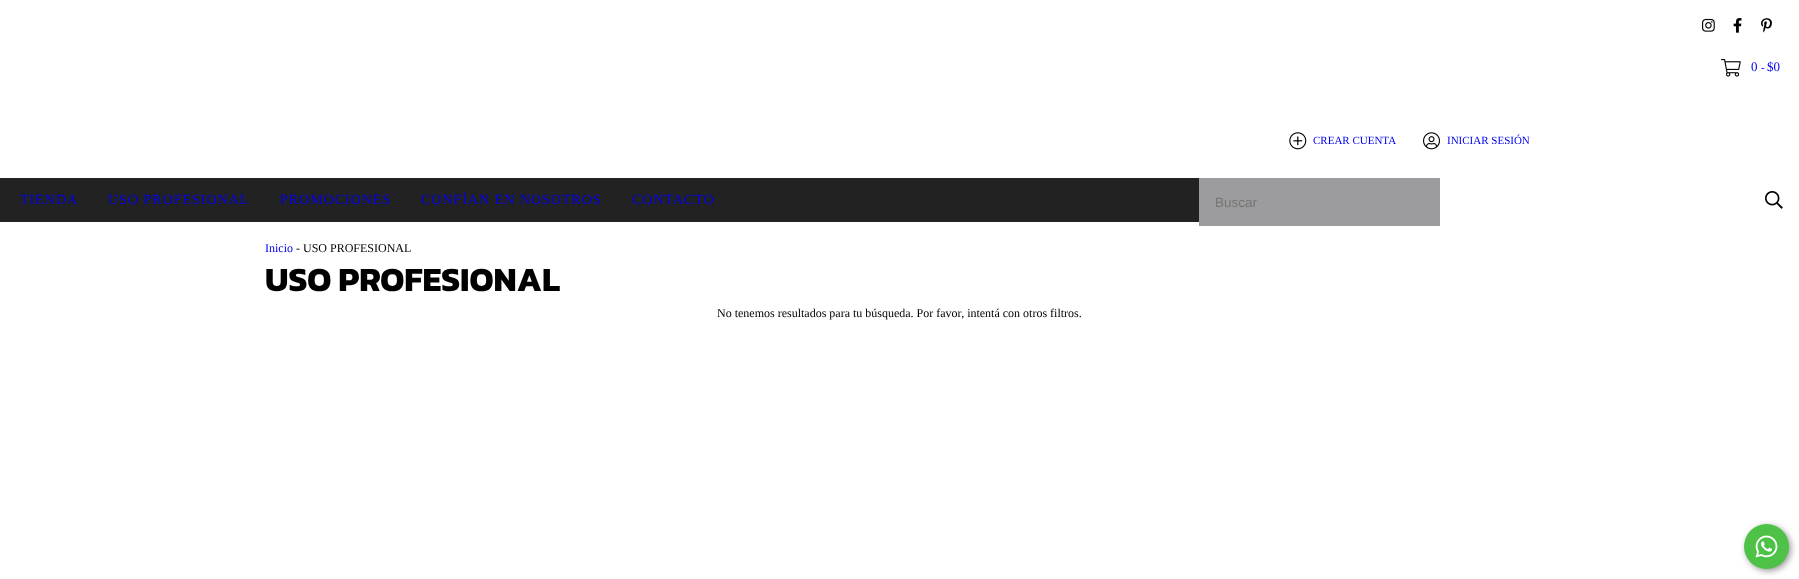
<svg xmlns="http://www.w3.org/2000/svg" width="1799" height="579">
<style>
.a{font:13px Liberation Serif;fill:#00e}
.b{font:11px Liberation Serif;fill:#00e}
.c{font:14px Liberation Serif;letter-spacing:1px;fill:#00e}
.d{font:13.5px Liberation Sans;fill:#757575}
.e{font:12px Liberation Serif;fill:#00e}
.f{font:12px Liberation Serif;fill:#000}
.g{font:bold 34px Kanit;fill:#000}
</style>
<rect width="100%" height="100%" fill="#fff"/>
<image href="1.png" x="1702" y="18" width="13" height="14"/>
<image href="2.png" x="1733" y="18" width="9" height="15"/>
<image href="3.png" x="1761" y="18" width="11" height="15"/>
<image href="4.png" x="1721" y="59" width="20" height="18"/>
<image href="5.png" x="1289" y="132" width="18" height="18"/>
<image href="6.png" x="1423" y="132" width="17" height="18"/>
<path fill="#232222" d="M0 178h1199v44H0z"/>
<path fill="#9c9b9d" d="M1199 178h241v48H1199z"/>
<image href="7.png" x="1765" y="191" width="18" height="18"/>
<rect fill="#00000066" filter="blur(3px)" x="1746" y="526" width="45" height="45" rx="22.5"/>
<circle fill="#4dc247" cx="1766.5" cy="546.5" r="22.5"/>
<image href="8.png" x="1755" y="535" width="23" height="23"/>
<text class="a" x="1751" y="71">0</text>
<text class="b" x="1761" y="71">-</text>
<text class="a" x="1767" y="71">$0</text>
<text class="b" x="1313" y="144">CREAR CUENTA</text>
<text class="b" x="1447" y="144">INICIAR SESIÓN</text>
<text class="c" x="20" y="204">TIENDA</text>
<text class="c" x="108" y="204">USO PROFESIONAL</text>
<text class="c" x="280" y="204">PROMOCIONES</text>
<text class="c" x="421" y="204">CONFÍAN EN NOSOTROS</text>
<text class="c" x="632" y="204">CONTACTO</text>
<text class="d" x="1215" y="207">Buscar</text>
<text class="e" x="265" y="252">Inicio</text>
<text class="f" x="296" y="252">- USO PROFESIONAL</text>
<text class="g" x="265" y="291">USO PROFESIONAL</text>
<text class="f" x="717" y="317">No tenemos resultados para tu búsqueda. Por favor, intentá con otros filtros.</text>
</svg>
